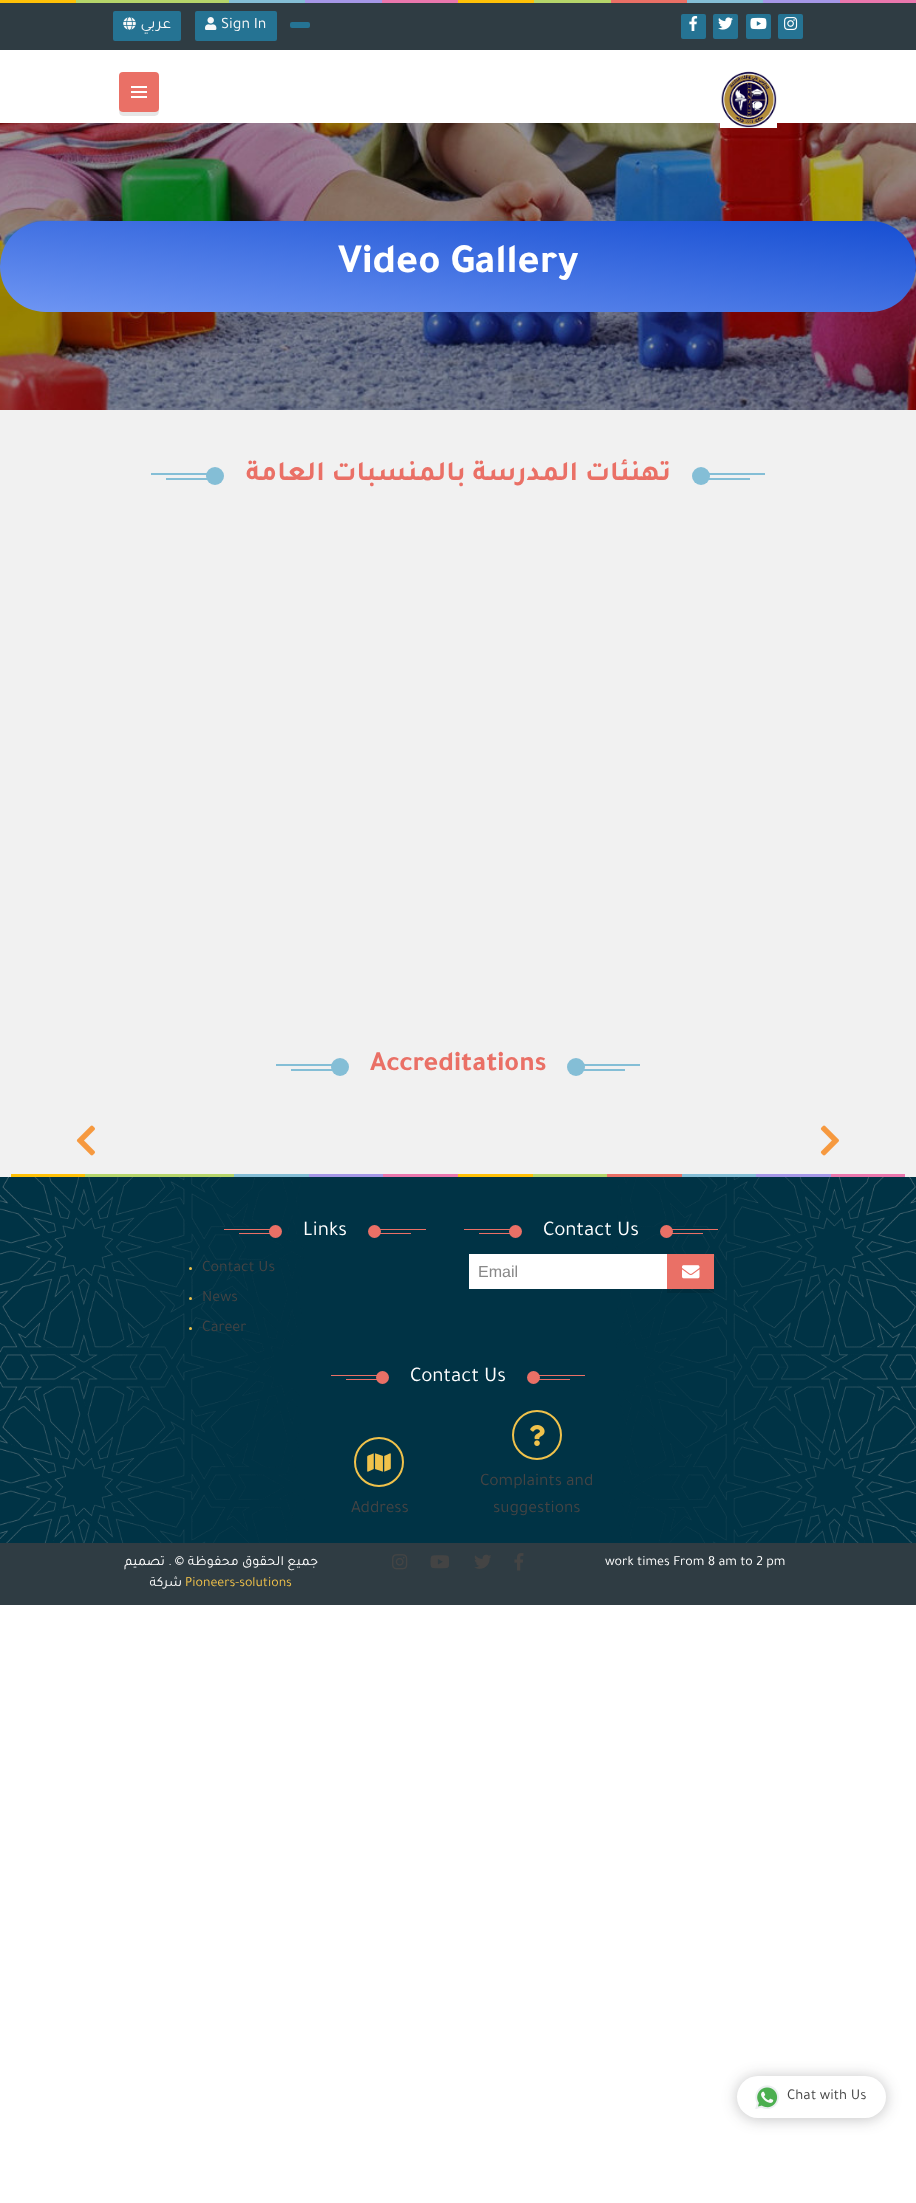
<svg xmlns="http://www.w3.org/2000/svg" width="916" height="2203">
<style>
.a{font:16px Tajawal;direction:rtl;fill:#f8f8f8}
.b{font:16px Tajawal;fill:#f8f8f8}
.c{font:bold 42px Tajawal;fill:#fff}
.d{font:bold 28px Tajawal;direction:rtl;fill:#ea7066}
.e{font:bold 28px Tajawal;fill:#ea7066}
.f{font:21px Tajawal;fill:#fff}
.g{font:16px Tajawal;fill:#444}
.h{font:16px Liberation Sans;fill:#888}
.i{font:17.5px Tajawal;fill:#444}
.j{font:14px Tajawal;direction:rtl;fill:#fff}
.k{font:14px Tajawal;fill:#f0c24b}
.l{font:14px Tajawal;fill:#fff}
.m{font:15px Tajawal;fill:#444}
</style>
<defs>
<linearGradient id="g1" gradientUnits="userSpaceOnUse" x1="449" y1="357" x2="467" y2="176"><stop offset="0" stop-color="#6f96f3"/><stop offset="1" stop-color="#164ed2"/></linearGradient>
</defs>
<rect width="100%" height="100%" fill="#fff"/>
<path fill="#f1f1f1" d="M0 410h916v767H0z"/>
<path fill="#2f3c43" d="M0 3h916v47H0z"/>
<path fill="#ffc107" d="M0 0h76v3H0z"/>
<path fill="#b5d56a" d="M76 0h153v3H76z"/>
<path fill="#84bed6" d="M229 0h76v3H229z"/>
<path fill="#a597e7" d="M305 0h77v3H305z"/>
<path fill="#ea77ad" d="M382 0h76v3H382z"/>
<path fill="#ffc107" d="M458 0h76v3H458z"/>
<path fill="#b5d56a" d="M534 0h77v3H534z"/>
<path fill="#ea7066" d="M611 0h76v3H611z"/>
<path fill="#84bed6" d="M687 0h76v3H687z"/>
<path fill="#a597e7" d="M763 0h77v3H763z"/>
<path fill="#ea77ad" d="M840 0h76v3H840z"/>
<rect fill="#257393" x="113" y="11" width="68" height="30" rx="2"/>
<image href="1.png" x="123" y="17" width="13" height="13"/>
<rect fill="#257393" x="195" y="11" width="82" height="30" rx="2"/>
<image href="2.png" x="205" y="17" width="12" height="13"/>
<rect fill="#257393" x="290" y="22" width="20" height="6" rx="2"/>
<rect fill="#257393" x="681" y="14" width="25" height="25" rx="2"/>
<image href="3.png" x="689" y="16" width="9" height="15"/>
<rect fill="#257393" x="713" y="14" width="25" height="25" rx="2"/>
<image href="4.png" x="718" y="17" width="15" height="13"/>
<rect fill="#257393" x="746" y="14" width="25" height="25" rx="2"/>
<image href="5.png" x="750" y="17" width="17" height="13"/>
<rect fill="#257393" x="778" y="14" width="25" height="25" rx="2"/>
<image href="6.png" x="784" y="17" width="14" height="13"/>
<path fill="#e6e6e6" d="M119 108c0 8 1 8 9 8h22c8 0 9 0 9-8c0 2-2 4-3 4h-34c-1 0-3-2-3-4z"/>
<rect fill="#ea7066" x="119" y="72" width="40" height="40" rx="4"/>
<path fill="#fff" d="M131 86h16v2H131z"/>
<path fill="#fff" d="M131 91h16v2H131z"/>
<path fill="#fff" d="M131 96h16v2H131z"/>
<image href="8.png" x="0" y="123" width="916" height="287"/>
<image href="7.png" x="720" y="71" width="57" height="57"/>
<rect fill="url(#g1)" y="221" width="916" height="91" rx="45.5"/>
<circle fill="#84bed6" cx="215" cy="476" r="9"/>
<path fill="#84bed6" d="M151 473h56v2H151z"/>
<path fill="#84bed6" d="M166 478h41v2H166z"/>
<circle fill="#84bed6" cx="701" cy="476" r="9"/>
<path fill="#84bed6" d="M709 473h56v2H709z"/>
<path fill="#84bed6" d="M709 478h41v2H709z"/>
<circle fill="#84bed6" cx="340" cy="1067" r="9"/>
<path fill="#84bed6" d="M276 1064h56v2H276z"/>
<path fill="#84bed6" d="M291 1069h41v2H291z"/>
<circle fill="#84bed6" cx="576" cy="1067" r="9"/>
<path fill="#84bed6" d="M584 1064h56v2H584z"/>
<path fill="#84bed6" d="M584 1069h41v2H584z"/>
<image href="9.png" x="76" y="1125" width="19" height="31"/>
<image href="10.png" x="820" y="1125" width="19" height="31"/>
<path fill="#ffc107" d="M11 1174h74v3H11z"/>
<path fill="#b5d56a" d="M85 1174h149v3H85z"/>
<path fill="#84bed6" d="M234 1174h75v3H234z"/>
<path fill="#a597e7" d="M309 1174h74v3H309z"/>
<path fill="#ea77ad" d="M383 1174h75v3H383z"/>
<path fill="#ffc107" d="M458 1174h75v3H458z"/>
<path fill="#b5d56a" d="M533 1174h74v3H533z"/>
<path fill="#ea7066" d="M607 1174h75v3H607z"/>
<path fill="#84bed6" d="M682 1174h74v3H682z"/>
<path fill="#a597e7" d="M756 1174h75v3H756z"/>
<path fill="#ea77ad" d="M831 1174h74v3H831z"/>
<path fill="#003345" d="M0 1177h916v366H0z"/>
<image href="11.png" x="0" y="1177" width="916" height="366"/>
<circle fill="#ea7066" cx="275.5" cy="1231.5" r="6.5"/>
<path fill="#ea7066" d="M224 1229h46v1H224z"/>
<path fill="#ea7066" d="M239 1233h31v1H239z"/>
<circle fill="#ea7066" cx="374.5" cy="1231.5" r="6.5"/>
<path fill="#ea7066" d="M380 1229h46v1H380z"/>
<path fill="#ea7066" d="M380 1233h31v1H380z"/>
<circle fill="#f0c24b" cx="190.5" cy="1268.5" r="1.5"/>
<circle fill="#f0c24b" cx="190.5" cy="1298.5" r="1.5"/>
<circle fill="#f0c24b" cx="190.5" cy="1328.5" r="1.5"/>
<circle fill="#ea7066" cx="515.5" cy="1231.5" r="6.5"/>
<path fill="#ea7066" d="M464 1229h46v1H464z"/>
<path fill="#ea7066" d="M479 1233h31v1H479z"/>
<circle fill="#ea7066" cx="666.5" cy="1231.5" r="6.5"/>
<path fill="#ea7066" d="M672 1229h46v1H672z"/>
<path fill="#ea7066" d="M672 1233h31v1H672z"/>
<path fill="#fff" d="M469 1254h198v35H469z"/>
<path fill="#0000001a" d="M667 1289h47v4H667z"/>
<path fill="#ea7066" d="M667 1254h47v35H667z"/>
<image href="12.png" x="682" y="1265" width="18" height="14"/>
<circle fill="#ea7066" cx="382.5" cy="1377.5" r="6.5"/>
<path fill="#ea7066" d="M331 1375h46v1H331z"/>
<path fill="#ea7066" d="M346 1379h31v1H346z"/>
<circle fill="#ea7066" cx="533.5" cy="1377.5" r="6.5"/>
<path fill="#ea7066" d="M539 1375h46v1H539z"/>
<path fill="#ea7066" d="M539 1379h31v1H539z"/>
<circle fill="none" stroke="#f0c24b" stroke-width="2" cx="379" cy="1462" r="24"/>
<image href="13.png" x="367" y="1453" width="24" height="19"/>
<circle fill="none" stroke="#f0c24b" stroke-width="2" cx="537" cy="1435" r="24"/>
<image href="14.png" x="530" y="1425" width="15" height="21"/>
<path fill="#2f3c43" d="M0 1543h916v62H0z"/>
<image href="15.png" x="392" y="1554" width="16" height="16"/>
<image href="16.png" x="430" y="1555" width="19" height="14"/>
<image href="17.png" x="474" y="1554" width="17" height="15"/>
<image href="18.png" x="514" y="1553" width="10" height="18"/>
<rect fill="#20212447" filter="blur(7.5px)" x="737" y="2077" width="149" height="42" rx="21"/>
<rect fill="#fff" x="737" y="2076" width="149" height="42" rx="21"/>
<image href="19.png" x="755" y="2085" width="24" height="24"/>
<text class="a" x="171" y="28">عربي</text>
<text class="b" x="221" y="28">Sign In</text>
<text class="c" x="338" y="272">Video Gallery</text>
<text class="d" x="671" y="480">تهنئات المدرسة بالمنسبات العامة</text>
<text class="e" x="370" y="1070">Accreditations</text>
<text class="f" x="303" y="1235">Links</text>
<text class="g" x="202" y="1271">Contact Us</text>
<text class="g" x="202" y="1301">News</text>
<text class="g" x="202" y="1331">Career</text>
<text class="f" x="543" y="1235">Contact Us</text>
<text class="h" x="478" y="1277">Email</text>
<text class="f" x="410" y="1381">Contact Us</text>
<text class="i" x="351" y="1512">Address</text>
<text class="i" x="480" y="1485">Complaints and</text>
<text class="i" x="493" y="1512">suggestions</text>
<text class="j" x="172" y="1565">. تصميم</text>
<text class="j" x="318" y="1565">جميع الحقوق محفوظة ©</text>
<text class="j" x="182" y="1586">شركة</text>
<text class="k" x="185" y="1586">Pioneers-solutions</text>
<text class="l" x="605" y="1565">work times From 8 am to 2 pm</text>
<text class="m" x="787" y="2099">Chat with Us</text>
</svg>
